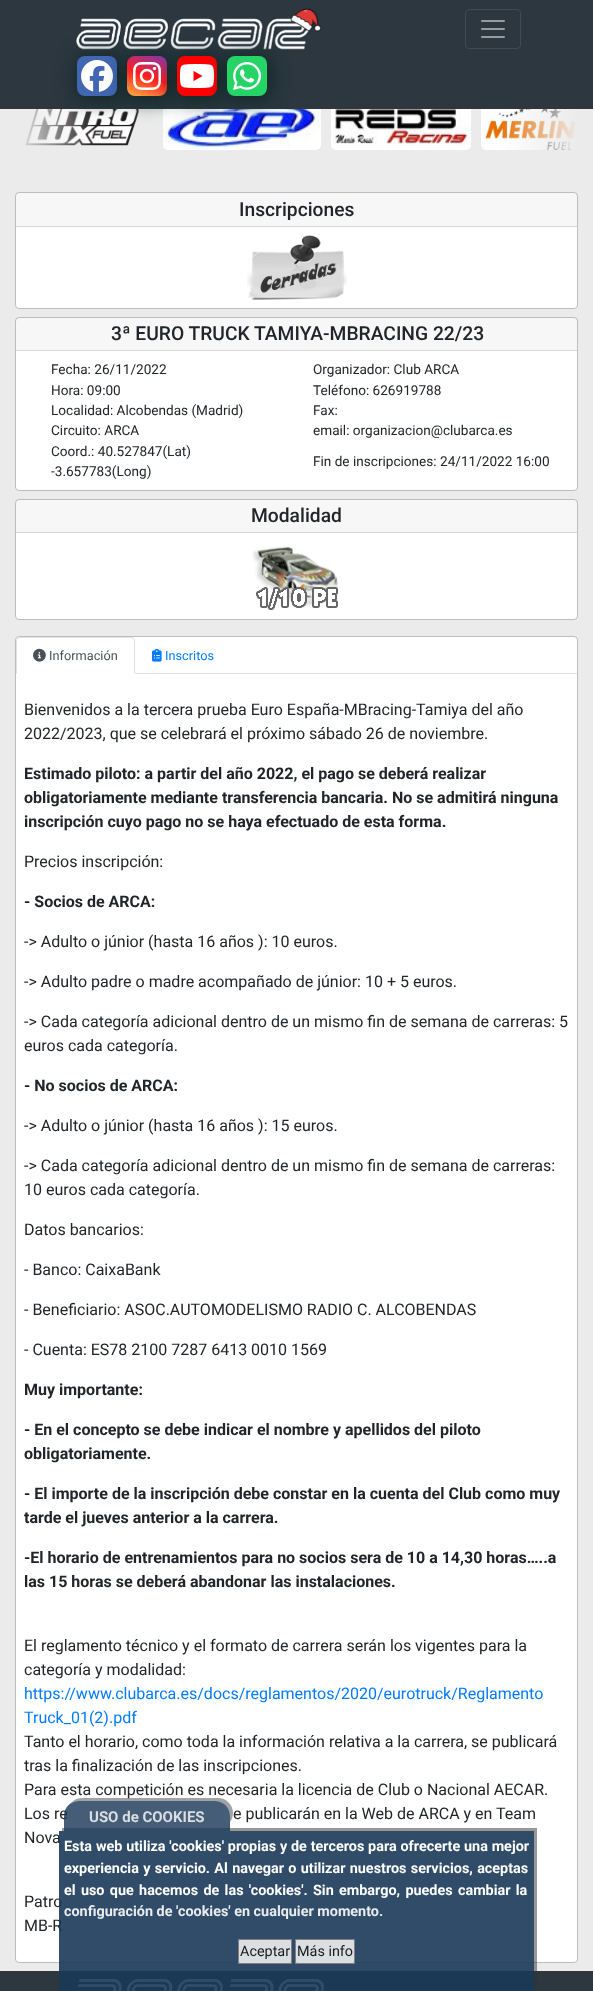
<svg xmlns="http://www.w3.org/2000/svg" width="593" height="1991">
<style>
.a{font:500 19.25px Roboto;fill:#212529}
.b{font:13.6px Roboto;fill:#212529}
.c{font:12.75px Roboto;fill:#495057}
.d{font:12.75px Roboto;fill:#007bff}
.e{font:16px Roboto;fill:#212529}
.f{font:bold 16px Roboto;fill:#212529}
.g{font:16px Roboto;fill:#007bff}
.h{font:bold 15px Roboto;fill:#dadee3}
.i{font:bold 14.4px Roboto;fill:#fff}
.j{font:bold 14.4px Roboto;fill:#eaedf0}
.k{font:14.4px Roboto;fill:#1a1a1a}
</style>
<defs>
<linearGradient id="g1" gradientUnits="userSpaceOnUse" x1="95" y1="130" x2="15" y2="130"><stop offset="0" stop-color="#ebebeb" stop-opacity="0"/><stop offset="1" stop-color="#ebebeb"/></linearGradient>
<linearGradient id="g2" gradientUnits="userSpaceOnUse" x1="156" y1="52" x2="138" y2="100"><stop offset="0" stop-color="#833ab4"/><stop offset="0.5" stop-color="#fd1d1d"/><stop offset="1" stop-color="#fcb045"/></linearGradient>
<linearGradient id="g3" gradientUnits="userSpaceOnUse" x1="498" y1="130" x2="578" y2="130"><stop offset="0" stop-color="#ebebeb" stop-opacity="0"/><stop offset="1" stop-color="#ebebeb"/></linearGradient>
<clipPath id="clip1"><path d="M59 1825h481v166h-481zm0 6h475v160h-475z" clip-rule="evenodd"/></clipPath>
<clipPath id="clip2"><path d="M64 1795h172v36h-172zm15 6h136c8.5 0 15 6.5 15 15v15h-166v-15c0-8.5 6.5-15 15-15z" clip-rule="evenodd"/></clipPath>
</defs>
<rect width="100%" height="100%" fill="#ebebeb"/>
<path fill="#2c3740" d="M0 0h593v109H0z"/>
<image href="1.png" x="76" y="8" width="246" height="42"/>
<rect fill="none" stroke="#414b53" x="465.5" y="9.5" width="55" height="39" rx="3.5"/>
<image href="2.png" x="481" y="20" width="24" height="18"/>
<image href="7.png" x="25" y="109" width="114" height="37"/>
<path fill="url(#g1)" d="M25 109h68v37H25z"/>
<rect fill="#0c2725" filter="blur(10px)" x="77" y="56" width="44" height="44" rx="10"/>
<rect fill="#4267b2" x="77" y="56" width="40" height="40" rx="8"/>
<image href="3.png" x="81" y="60" width="32" height="32"/>
<image href="8.png" x="163" y="109" width="158" height="41"/>
<rect fill="#0c2725" filter="blur(10px)" x="127" y="56" width="44" height="44" rx="10"/>
<rect fill="url(#g2)" x="127" y="56" width="40" height="40" rx="8"/>
<image href="4.png" x="133" y="62" width="28" height="28"/>
<rect fill="#0c2725" filter="blur(10px)" x="177" y="56" width="44" height="44" rx="10"/>
<rect fill="#f00" x="177" y="56" width="40" height="40" rx="8"/>
<image href="5.png" x="179" y="64" width="36" height="24"/>
<rect fill="#0c2725" filter="blur(10px)" x="227" y="56" width="44" height="44" rx="10"/>
<rect fill="#25d366" x="227" y="56" width="40" height="40" rx="8"/>
<image href="6.png" x="233" y="62" width="28" height="28"/>
<image href="9.png" x="331" y="109" width="140" height="41"/>
<image href="10.png" x="481" y="109" width="97" height="41"/>
<path fill="url(#g3)" d="M500 109h78v41H500z"/>
<rect fill="#fff" stroke="#bcbdbd" x="15.5" y="192.5" width="562" height="116" rx="3.5"/>
<path fill="#00000008" d="M16 193h561v33H16z"/>
<path fill="#d8d8d8" d="M16 226h561v1H16z"/>
<image href="11.png" x="247" y="235" width="100" height="65"/>
<rect fill="#fff" stroke="#bcbdbd" x="15.5" y="317.5" width="562" height="173" rx="3.5"/>
<path fill="#00000008" d="M16 318h561v32H16z"/>
<path fill="#d8d8d8" d="M16 350h561v1H16z"/>
<rect fill="#fff" stroke="#bcbdbd" x="15.5" y="499.5" width="562" height="120" rx="3.5"/>
<path fill="#00000008" d="M16 500h561v32H16z"/>
<path fill="#d8d8d8" d="M16 532h561v1H16z"/>
<image href="12.png" x="252" y="546" width="86" height="64"/>
<rect fill="#fff" stroke="#bcbdbd" x="15.5" y="636.5" width="562" height="1326" rx="3.5"/>
<path fill="#dee2e6" d="M135 673h442v1H135z"/>
<path fill="#fff" d="M20 637h111c2 0 4 2 4 4v33h-119v-33c0-2 2-4 4-4z"/>
<path fill="#dee2e6" d="M20 637l-3 1l1 1l2-1h111l2 1l1-1l-3-1z"/>
<path fill="#dee2e6" d="M135 674v-33c0-1-.5-2-1-3l-1 1c1 0 1 1 1 2v32z"/>
<path fill="#fff" d="M135 674l-1-1h-117l-1 1z"/>
<path fill="#dee2e6" d="M16 674l1-1v-32c0-1 0-2 1-2l-1-1c-.5 1-1 2-1 3z"/>
<image href="13.png" x="33" y="648" width="13" height="14"/>
<image href="14.png" x="152" y="648" width="10" height="14"/>
<path fill="#2c3740" d="M0 1971h593v20H0z"/>
<image href="15.png" x="78" y="1979" width="246" height="12"/>
<g clip-path="url(#clip1)">
<path fill="#32323280" filter="blur(0.5px)" d="M62 1828h475v160H62z"/>
</g>
<g clip-path="url(#clip2)">
<rect fill="#32323273" filter="blur(0.5px)" x="67" y="1798" width="166" height="30" rx="15"/>
</g>
<text class="a" x="239" y="216">Inscripciones</text>
<text class="a" x="111" y="340">3ª EURO TRUCK TAMIYA-MBRACING 22/23</text>
<text class="b" x="51" y="374">Fecha: 26/11/2022</text>
<text class="b" x="313" y="374">Organizador: Club ARCA</text>
<text class="b" x="51" y="395">Hora: 09:00</text>
<text class="b" x="313" y="395">Teléfono: 626919788</text>
<text class="b" x="51" y="415">Localidad: Alcobendas (Madrid)</text>
<text class="b" x="313" y="415">Fax:</text>
<text class="b" x="51" y="435">Circuito: ARCA</text>
<text class="b" x="313" y="435">email: organizacion@clubarca.es</text>
<text class="b" x="51" y="456">Coord.: 40.527847(Lat)</text>
<text class="b" x="51" y="476">-3.657783(Long)</text>
<text class="b" x="313" y="466">Fin de inscripciones: 24/11/2022 16:00</text>
<text class="a" x="251" y="522">Modalidad</text>
<text class="c" x="49" y="660">Información</text>
<text class="d" x="165" y="660">Inscritos</text>
<text class="e" x="24" y="715">Bienvenidos a la tercera prueba Euro España-MBracing-Tamiya del año</text>
<text class="e" x="24" y="739">2022/2023, que se celebrará el próximo sábado 26 de noviembre.</text>
<text class="f" x="24" y="779">Estimado piloto: a partir del año 2022, el pago se deberá realizar</text>
<text class="f" x="24" y="803">obligatoriamente mediante transferencia bancaria. No se admitirá ninguna</text>
<text class="f" x="24" y="827">inscripción cuyo pago no se haya efectuado de esta forma.</text>
<text class="e" x="24" y="867">Precios inscripción:</text>
<text class="f" x="24" y="907">- Socios de ARCA:</text>
<text class="e" x="24" y="947">-&gt; Adulto o júnior (hasta 16 años ): 10 euros.</text>
<text class="e" x="24" y="987">-&gt; Adulto padre o madre acompañado de júnior: 10 + 5 euros.</text>
<text class="e" x="24" y="1027">-&gt; Cada categoría adicional dentro de un mismo fin de semana de carreras: 5</text>
<text class="e" x="24" y="1051">euros cada categoría.</text>
<text class="f" x="24" y="1091">- No socios de ARCA:</text>
<text class="e" x="24" y="1131">-&gt; Adulto o júnior (hasta 16 años ): 15 euros.</text>
<text class="e" x="24" y="1171">-&gt; Cada categoría adicional dentro de un mismo fin de semana de carreras:</text>
<text class="e" x="24" y="1195">10 euros cada categoría.</text>
<text class="e" x="24" y="1235">Datos bancarios:</text>
<text class="e" x="24" y="1275">- Banco: CaixaBank</text>
<text class="e" x="24" y="1315">- Beneficiario: ASOC.AUTOMODELISMO RADIO C. ALCOBENDAS</text>
<text class="e" x="24" y="1355">- Cuenta: ES78 2100 7287 6413 0010 1569</text>
<text class="f" x="24" y="1395">Muy importante:</text>
<text class="f" x="24" y="1435">- En el concepto se debe indicar el nombre y apellidos del piloto</text>
<text class="f" x="24" y="1459">obligatoriamente.</text>
<text class="f" x="24" y="1499">- El importe de la inscripción debe constar en la cuenta del Club como muy</text>
<text class="f" x="24" y="1523">tarde el jueves anterior a la carrera.</text>
<text class="f" x="24" y="1563">-El horario de entrenamientos para no socios sera de 10 a 14,30 horas…..a</text>
<text class="f" x="24" y="1587">las 15 horas se deberá abandonar las instalaciones.</text>
<text class="e" x="24" y="1651">El reglamento técnico y el formato de carrera serán los vigentes para la</text>
<text class="e" x="24" y="1675">categoría y modalidad:</text>
<text class="g" x="24" y="1699">https://www.clubarca.es/docs/reglamentos/2020/eurotruck/Reglamento</text>
<text class="g" x="24" y="1723">Truck_01(2).pdf</text>
<text class="e" x="24" y="1747">Tanto el horario, como toda la información relativa a la carrera, se publicará</text>
<text class="e" x="24" y="1771">tras la finalización de las inscripciones.</text>
<text class="e" x="24" y="1795">Para esta competición es necesaria la licencia de Club o Nacional AECAR.</text>
<text class="e" x="24" y="1819">Los re</text>
<text class="e" x="233" y="1819">e publicarán en la Web de ARCA y en Team</text>
<text class="e" x="24" y="1843">Nova</text>
<text class="e" x="24" y="1907">Patro</text>
<text class="e" x="24" y="1931">MB-R</text>
<path fill="#1a3858e6" d="M59 1831h475v160H59z"/>
<path fill="#1a3858cf" d="M79 1801h136c8.5 0 15 6.5 15 15v15h-166v-15c0-8.5 6.5-15 15-15z"/>
<text class="h" x="89" y="1822">USO de COOKIES</text>
<text class="i" x="64" y="1851" word-spacing="0.25">Esta web utiliza 'cookies' propias y de terceros para ofrecerte una mejor</text>
<text class="i" x="64" y="1873" word-spacing="0.75">experiencia y servicio. Al navegar o utilizar nuestros servicios, aceptas</text>
<text class="i" x="64" y="1895" word-spacing="1.75">el uso que hacemos de las 'cookies'. Sin embargo, puedes cambiar la</text>
<text class="j" x="64" y="1916">configuración de 'cookies' en cualquier momento.</text>
<rect fill="#efefefe6" x="238" y="1939" width="54" height="25" rx="2"/>
<rect fill="none" stroke="#767676e6" x="238.5" y="1939.5" width="53" height="24" rx="1.5"/>
<text class="k" x="240" y="1956">Aceptar</text>
<rect fill="#efefefe6" x="295" y="1939" width="60" height="25" rx="2"/>
<rect fill="none" stroke="#767676e6" x="295.5" y="1939.5" width="59" height="24" rx="1.5"/>
<text class="k" x="297" y="1956">Más info</text>
</svg>
